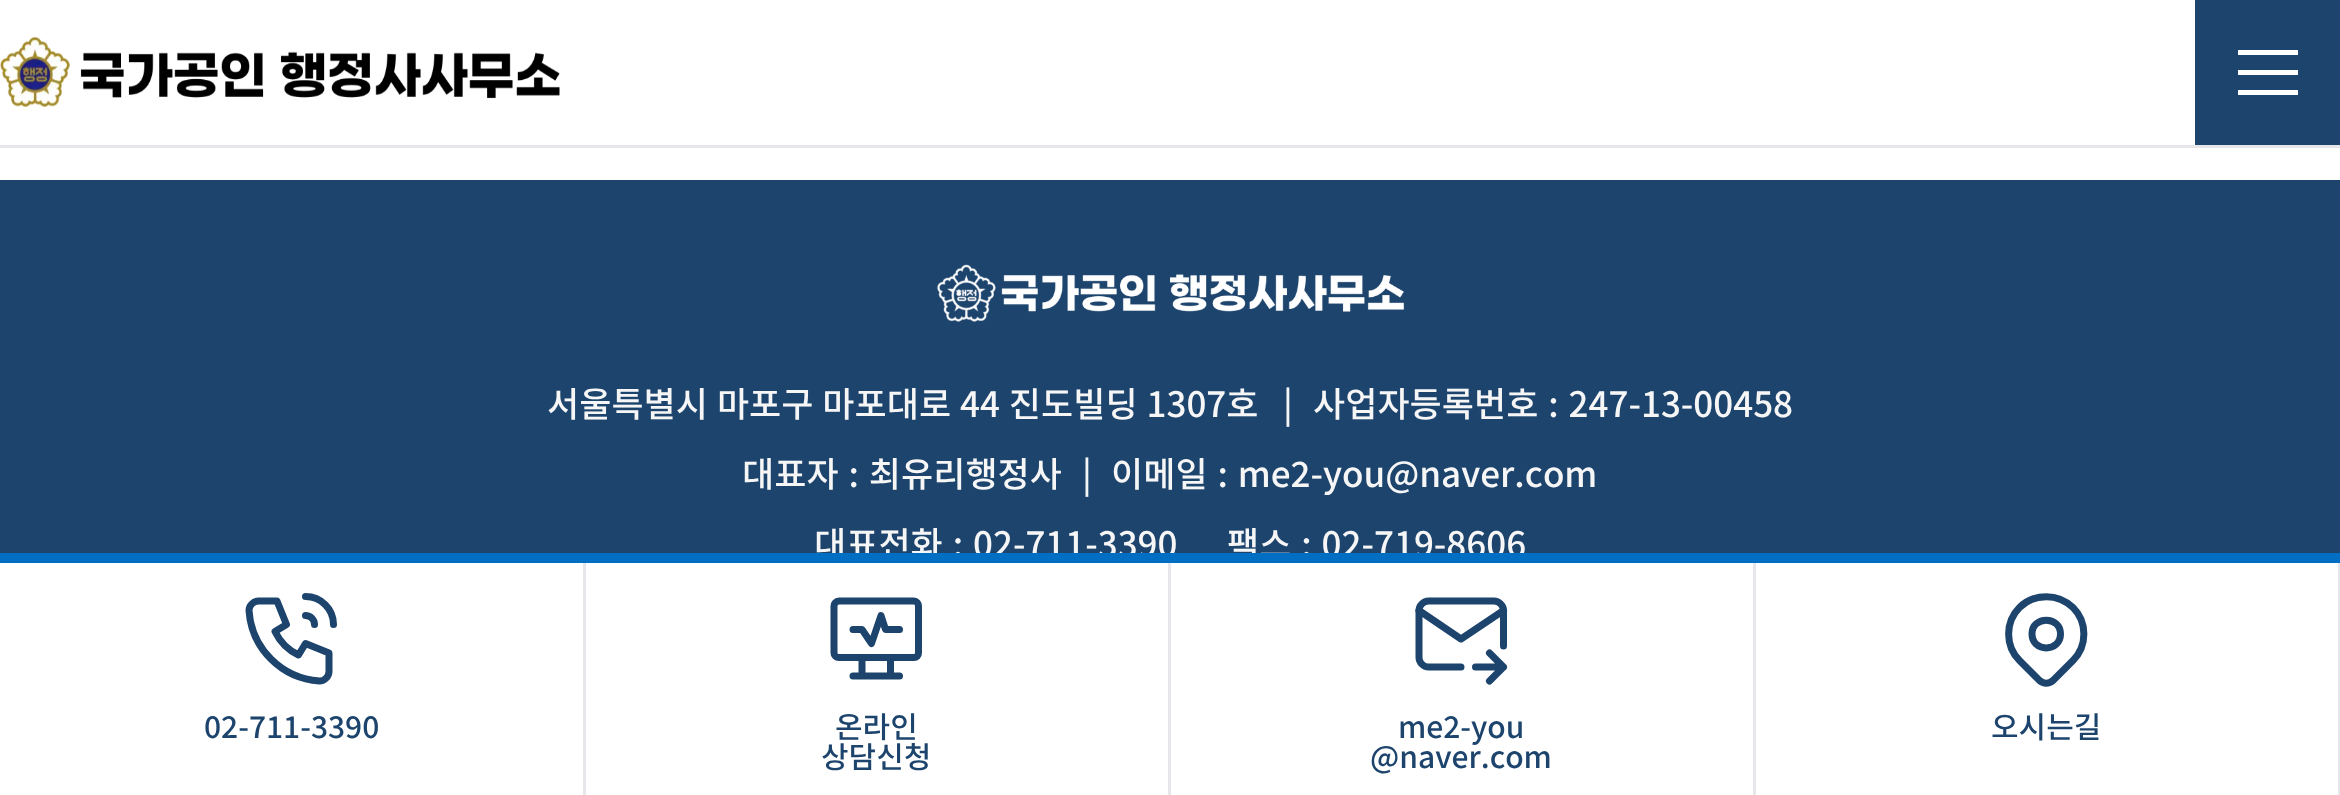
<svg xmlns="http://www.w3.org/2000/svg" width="2340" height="795">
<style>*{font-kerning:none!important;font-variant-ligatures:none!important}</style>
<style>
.a{font:500 35px Noto Sans KR;fill:#f6f6f6}
.b{font:500 30px Noto Sans KR;fill:#1d446d}
</style>
<rect width="100%" height="100%" fill="#fff"/>
<path fill="#e5e7eb" d="M0 145h2340v3H0z"/>
<image href="1.png" x="0" y="37" width="560" height="70"/>
<path fill="#1d446d" d="M2195 0h145v145H2195z"/>
<path fill="#fff" d="M2238 70h60v5H2238z"/>
<path fill="#fff" d="M2238 50h60v5H2238z"/>
<path fill="#fff" d="M2238 90h60v5H2238z"/>
<path fill="#1d446d" d="M0 180h2340v373H0z"/>
<image href="2.png" x="937" y="264" width="468" height="58"/>
<path fill="#e5e7eb" d="M583 563h3v232H583z"/>
<path fill="none" stroke="#1d446d" stroke-width="7" stroke-linecap="round" stroke-linejoin="round" d="M258.5 601h18.5l9.5 23.5l-11.5 7c5 10.5 13 18.5 23.5 23.5l7-11.5l23.5 9.5v18.5c0 5-4.5 9.5-9.5 9.5c-38-2.5-68-32.5-70.5-70.5c0-5 4.5-9.5 9.5-9.5"/>
<path fill="none" stroke="#1d446d" stroke-width="7" stroke-linecap="round" stroke-linejoin="round" d="M305.5 615.5c5 0 9 4 9 9m-9-28c15.5 0 28 12.5 28 28"/>
<path fill="#e5e7eb" d="M1168 563h3v232H1168z"/>
<path fill="none" stroke="#1d446d" stroke-width="7" stroke-linecap="round" stroke-linejoin="round" d="M834 606c0-2.5 2-5 5-5h75c2.5 0 4.5 2.5 4.5 5v47c0 2.5-2 4.5-4.5 4.5h-75c-3 0-5-2-5-4.5z"/>
<path fill="none" stroke="#1d446d" stroke-width="7" stroke-linecap="round" stroke-linejoin="round" d="M853 676h46.5m-37.5-18.5v18.5m28.5-18.5v18.5"/>
<path fill="none" stroke="#1d446d" stroke-width="7" stroke-linecap="round" stroke-linejoin="round" d="M853 629.5h9l9.5 14l9.5-28l4.5 14h14"/>
<path fill="#e5e7eb" d="M1753 563h3v232H1753z"/>
<path fill="none" stroke="#1d446d" stroke-width="7" stroke-linecap="round" stroke-linejoin="round" d="M1461 667h-32.5c-5 0-9.5-4.5-9.5-9.5v-47c0-5 4.5-9.5 9.5-9.5h65.5c5 0 9.5 4.5 9.5 9.5v35.5"/>
<path fill="none" stroke="#1d446d" stroke-width="7" stroke-linecap="round" stroke-linejoin="round" d="M1419 610.5l42 28.5l42.5-28.5"/>
<path fill="none" stroke="#1d446d" stroke-width="7" stroke-linecap="round" stroke-linejoin="round" d="M1475.5 667h28m-14-14l14 14l-14 14"/>
<path fill="#e5e7eb" d="M2338 563h2v232H2338z"/>
<path fill="none" stroke="#1d446d" stroke-width="7" stroke-linecap="round" stroke-linejoin="round" d="M2032 634c0 18.5 28.5 18.5 28.5 0c0-18.5-28.5-18.5-28.5 0"/>
<path fill="none" stroke="#1d446d" stroke-width="7" stroke-linecap="round" stroke-linejoin="round" d="M2073 660.5l-20 20c-4 3.5-9.5 3.5-13.5 0l-20-20c-14.5-14.5-14.5-38.5 0-53c15-14.5 38.5-14.5 53.5 0c14.5 14.5 14.5 38.5 0 53z"/>
<text class="a" x="547" y="417" word-spacing="1">서울특별시 마포구 마포대로 44 진도빌딩 1307호</text>
<text class="a" x="1283" y="417">|</text>
<text class="a" x="1313" y="417" word-spacing="2">사업자등록번호 : 247-13-00458</text>
<text class="a" x="742" y="487" word-spacing="2">대표자 : 최유리행정사</text>
<text class="a" x="1082" y="487">|</text>
<text class="a" x="1111" y="487" word-spacing="2">이메일 : me2-you@naver.com</text>
<text class="a" x="814" y="557" word-spacing="2">대표전화 : 02-711-3390</text>
<text class="a" x="1227" y="557" word-spacing="2">팩스 : 02-719-8606</text>
<path fill="#006ec2" d="M0 553h2340v10H0z"/>
<text class="b" x="204" y="738">02-711-3390</text>
<text class="b" x="835" y="738">온라인</text>
<text class="b" x="821" y="768">상담신청</text>
<text class="b" x="1398" y="738">me2-you</text>
<text class="b" x="1370" y="768">@naver.com</text>
<text class="b" x="1991" y="738">오시는길</text>
</svg>
